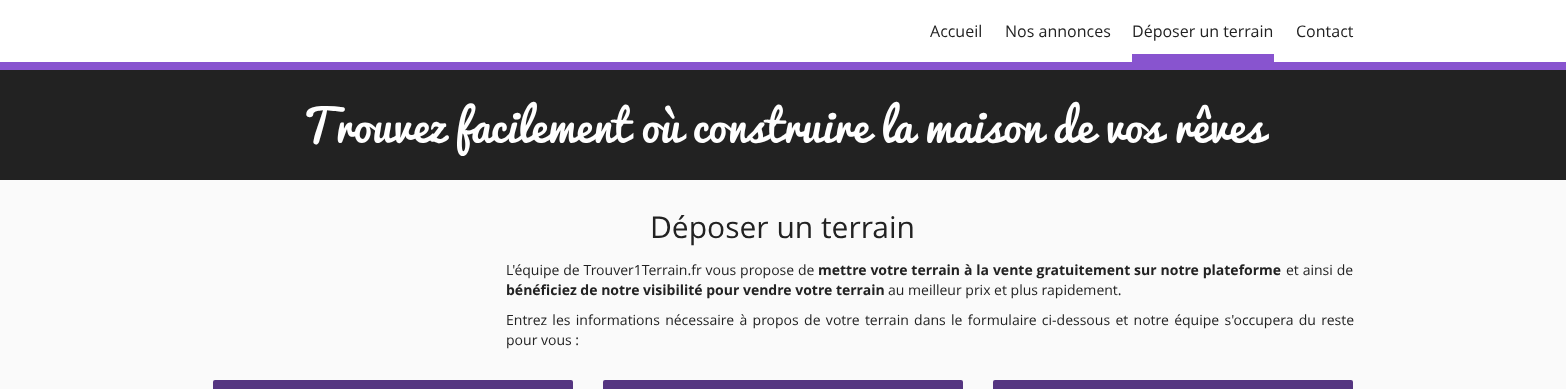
<svg xmlns="http://www.w3.org/2000/svg" width="1566" height="389">
<style>
.a{font:16px Open Sans;fill:#222}
.b{font:44px Pacifico;fill:#fff}
.c{font:30px Open Sans;fill:#222}
.d{font:14px Open Sans;fill:#222}
.e{font:bold 14px Open Sans;fill:#222}
</style>
<rect width="100%" height="100%" fill="#222"/>
<path fill="#fff" d="M0 0h1566v62H0z"/>
<path fill="#8854cf" d="M0 62h1566v8H0z"/>
<path fill="#8854cf" d="M1132 54h142v8H1132z"/>
<path fill="#fafafa" d="M0 180h1566v209H0z"/>
<rect fill="#553581" x="213" y="380" width="360" height="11" rx="2"/>
<rect fill="#553581" x="603" y="380" width="360" height="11" rx="2"/>
<rect fill="#553581" x="993" y="380" width="360" height="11" rx="2"/>
<text class="a" x="930" y="37">Accueil</text>
<text class="a" x="1005" y="37">Nos annonces</text>
<text class="a" x="1132" y="37">Déposer un terrain</text>
<text class="a" x="1296" y="37">Contact</text>
<text class="b" x="302" y="143">Trouvez facilement où construire la maison de vos rêves</text>
<text class="c" x="650" y="238">Déposer un terrain</text>
<text class="d" x="506" y="275" word-spacing="0.25">L'équipe de Trouver1Terrain.fr vous propose de</text>
<text class="e" x="818" y="275" word-spacing="0.25">mettre votre terrain à la vente gratuitement sur notre plateforme</text>
<text class="d" x="1286" y="275" word-spacing="0.25">et ainsi de</text>
<text class="e" x="506" y="295">bénéficiez de notre visibilité pour vendre votre terrain</text>
<text class="d" x="888" y="295">au meilleur prix et plus rapidement.</text>
<text class="d" x="506" y="325" word-spacing="1.7">Entrez les informations nécessaire à propos de votre terrain dans le formulaire ci-dessous et notre équipe s'occupera du reste</text>
<text class="d" x="506" y="345">pour vous :</text>
</svg>
